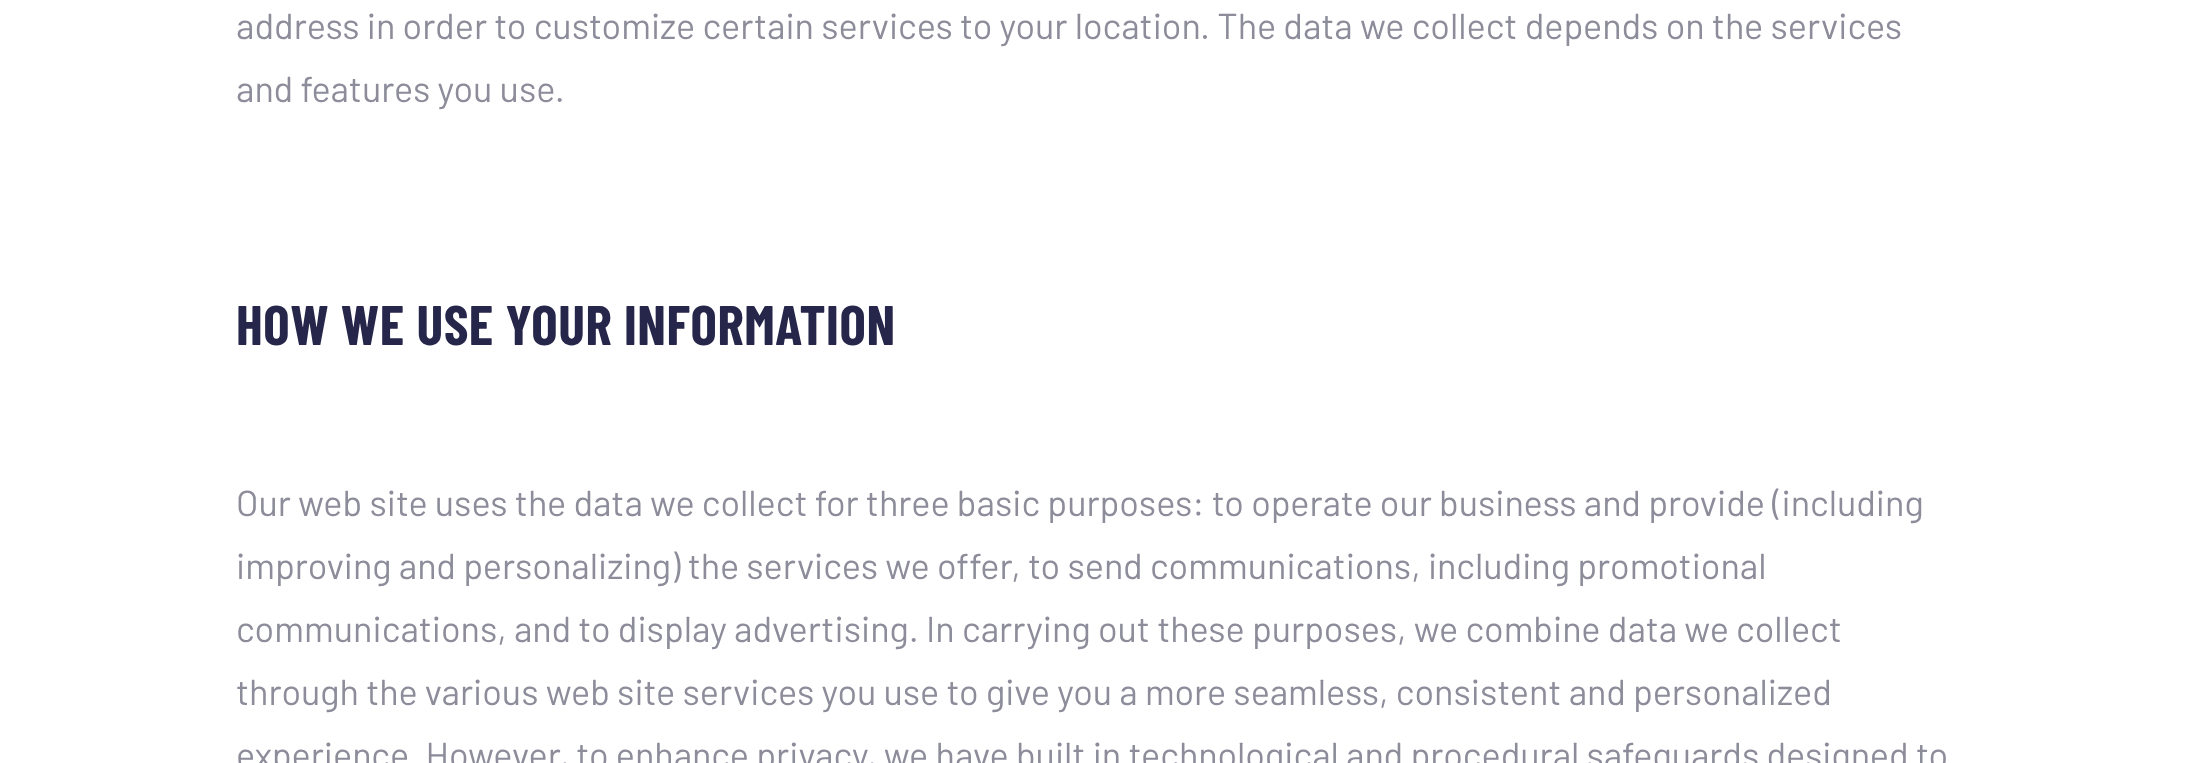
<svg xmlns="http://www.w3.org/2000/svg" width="2200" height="763">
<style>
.a{font:36px Barlow;fill:#8c8c9a}
.b{font:bold 55.75px Barlow Condensed;letter-spacing:0.55px;fill:#26264b}
</style>
<rect width="100%" height="100%" fill="#fff"/>
<text class="a" x="236" y="39">address in order to customize certain services to your location. The data we collect depends on the services</text>
<text class="a" x="236" y="102">and features you use.</text>
<text class="b" x="236" y="345">HOW WE USE YOUR INFORMATION</text>
<text class="a" x="236" y="516">Our web site uses the data we collect for three basic purposes: to operate our business and provide (including</text>
<text class="a" x="236" y="579">improving and personalizing) the services we offer, to send communications, including promotional</text>
<text class="a" x="236" y="642">communications, and to display advertising. In carrying out these purposes, we combine data we collect</text>
<text class="a" x="236" y="705">through the various web site services you use to give you a more seamless, consistent and personalized</text>
<text class="a" x="236" y="768">experience. However, to enhance privacy, we have built in technological and procedural safeguards designed to</text>
</svg>
